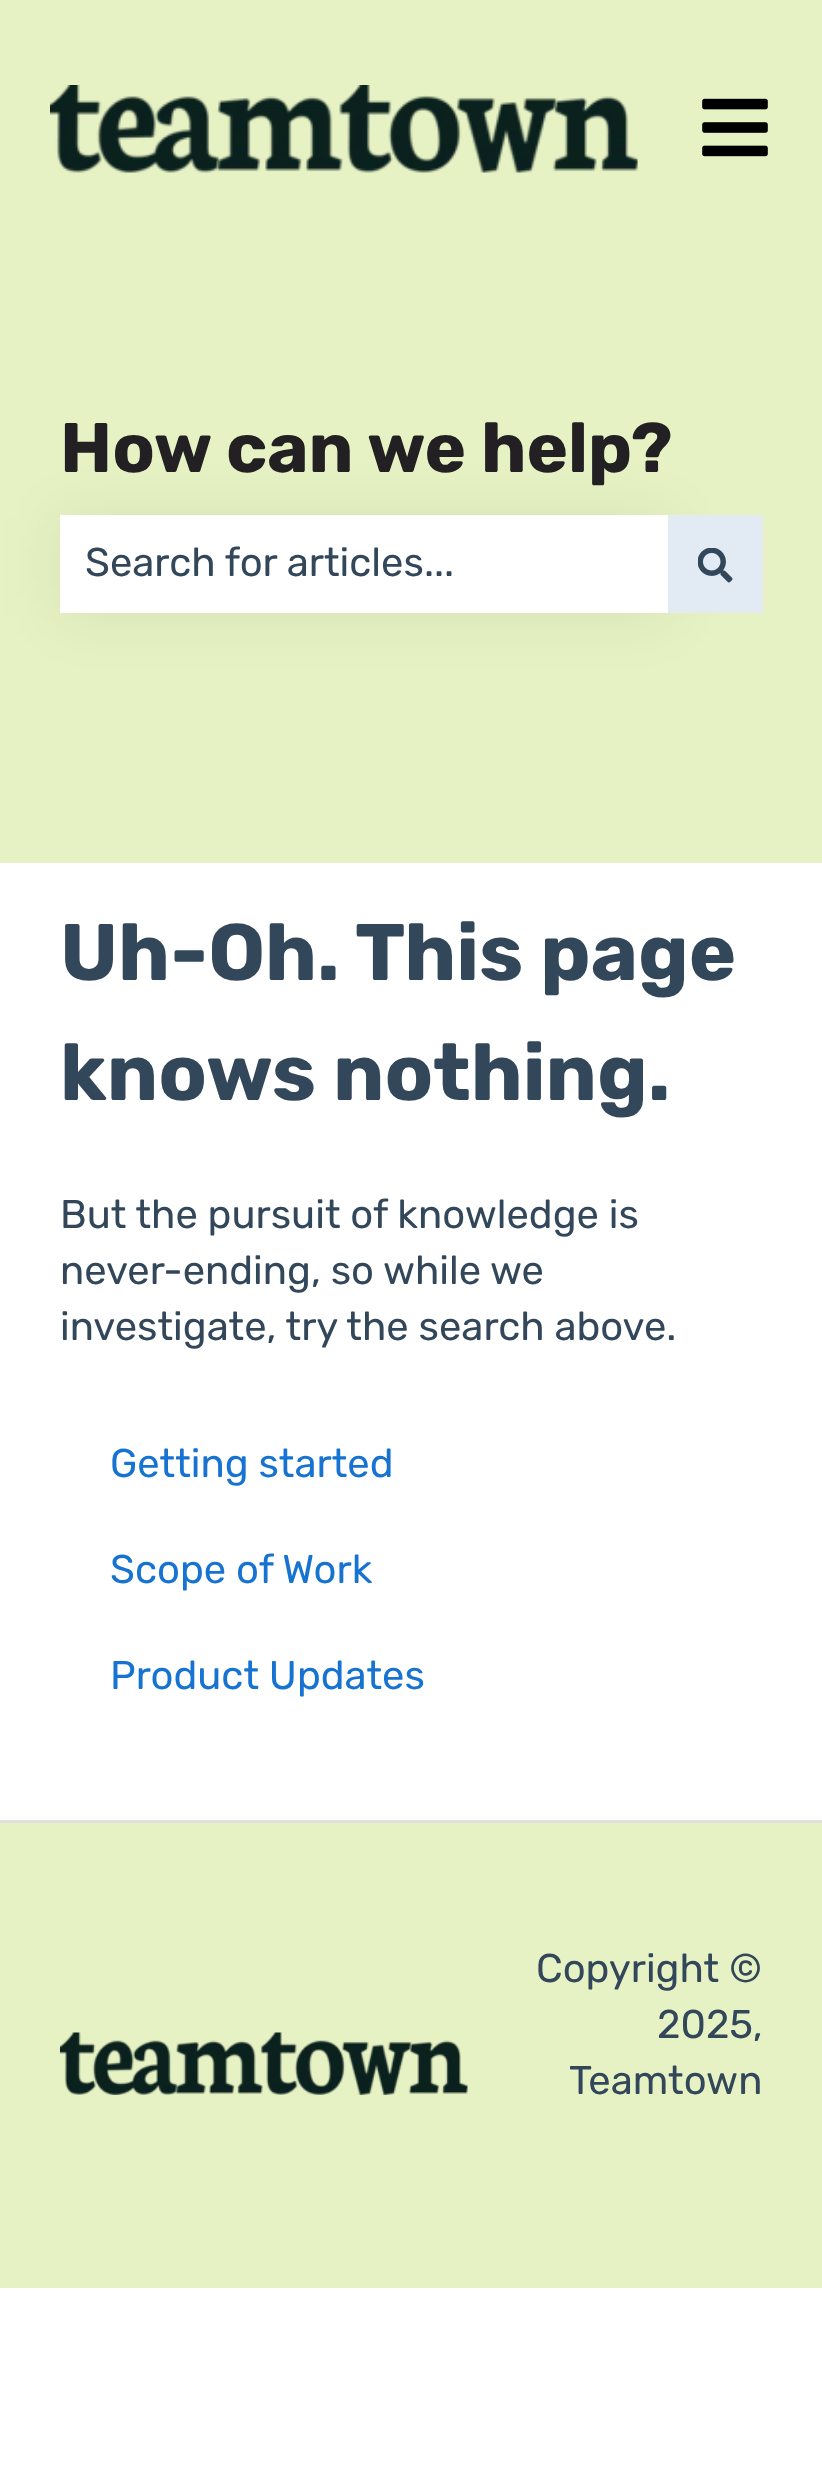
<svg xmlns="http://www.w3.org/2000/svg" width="822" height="2492">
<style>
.a{font:bold 70px Rubik;fill:#222022}
.b{font:40px Rubik;fill:#33475b}
.c{font:bold 80px Rubik;fill:#33475b}
.d{font:40px Rubik;fill:#1773d1}
</style>
<rect width="100%" height="100%" fill="#fff"/>
<path fill="#e7f2c4" d="M0 0h822v863H0z"/>
<image href="1.png" x="50" y="85" width="588" height="88"/>
<image href="2.png" x="702" y="98" width="66" height="59"/>
<path fill="#00000014" filter="blur(30px)" d="M60 518h608v97H60z"/>
<path fill="#fff" d="M60 515h608v98H60z"/>
<path fill="#e2ebf4" d="M668 515h95v98H668z"/>
<image href="3.png" x="698" y="548" width="35" height="35"/>
<path fill="#e7f2c4" d="M0 1823h822v465H0z"/>
<path fill="#e0e0e0" d="M0 1820h822v3H0z"/>
<image href="4.png" x="60" y="2032" width="408" height="63"/>
<text class="a" x="60" y="472">How can we help?</text>
<text class="b" x="85" y="576">Search for articles...</text>
<text class="c" x="60" y="980">Uh-Oh. This page</text>
<text class="c" x="60" y="1100">knows nothing.</text>
<text class="b" x="60" y="1228">But the pursuit of knowledge is</text>
<text class="b" x="60" y="1284">never-ending, so while we</text>
<text class="b" x="60" y="1340">investigate, try the search above.</text>
<text class="d" x="110" y="1477">Getting started</text>
<text class="d" x="110" y="1583">Scope of Work</text>
<text class="d" x="110" y="1689">Product Updates</text>
<text class="b" x="536" y="1982">Copyright ©</text>
<text class="b" x="657" y="2038">2025,</text>
<text class="b" x="569" y="2094">Teamtown</text>
</svg>
